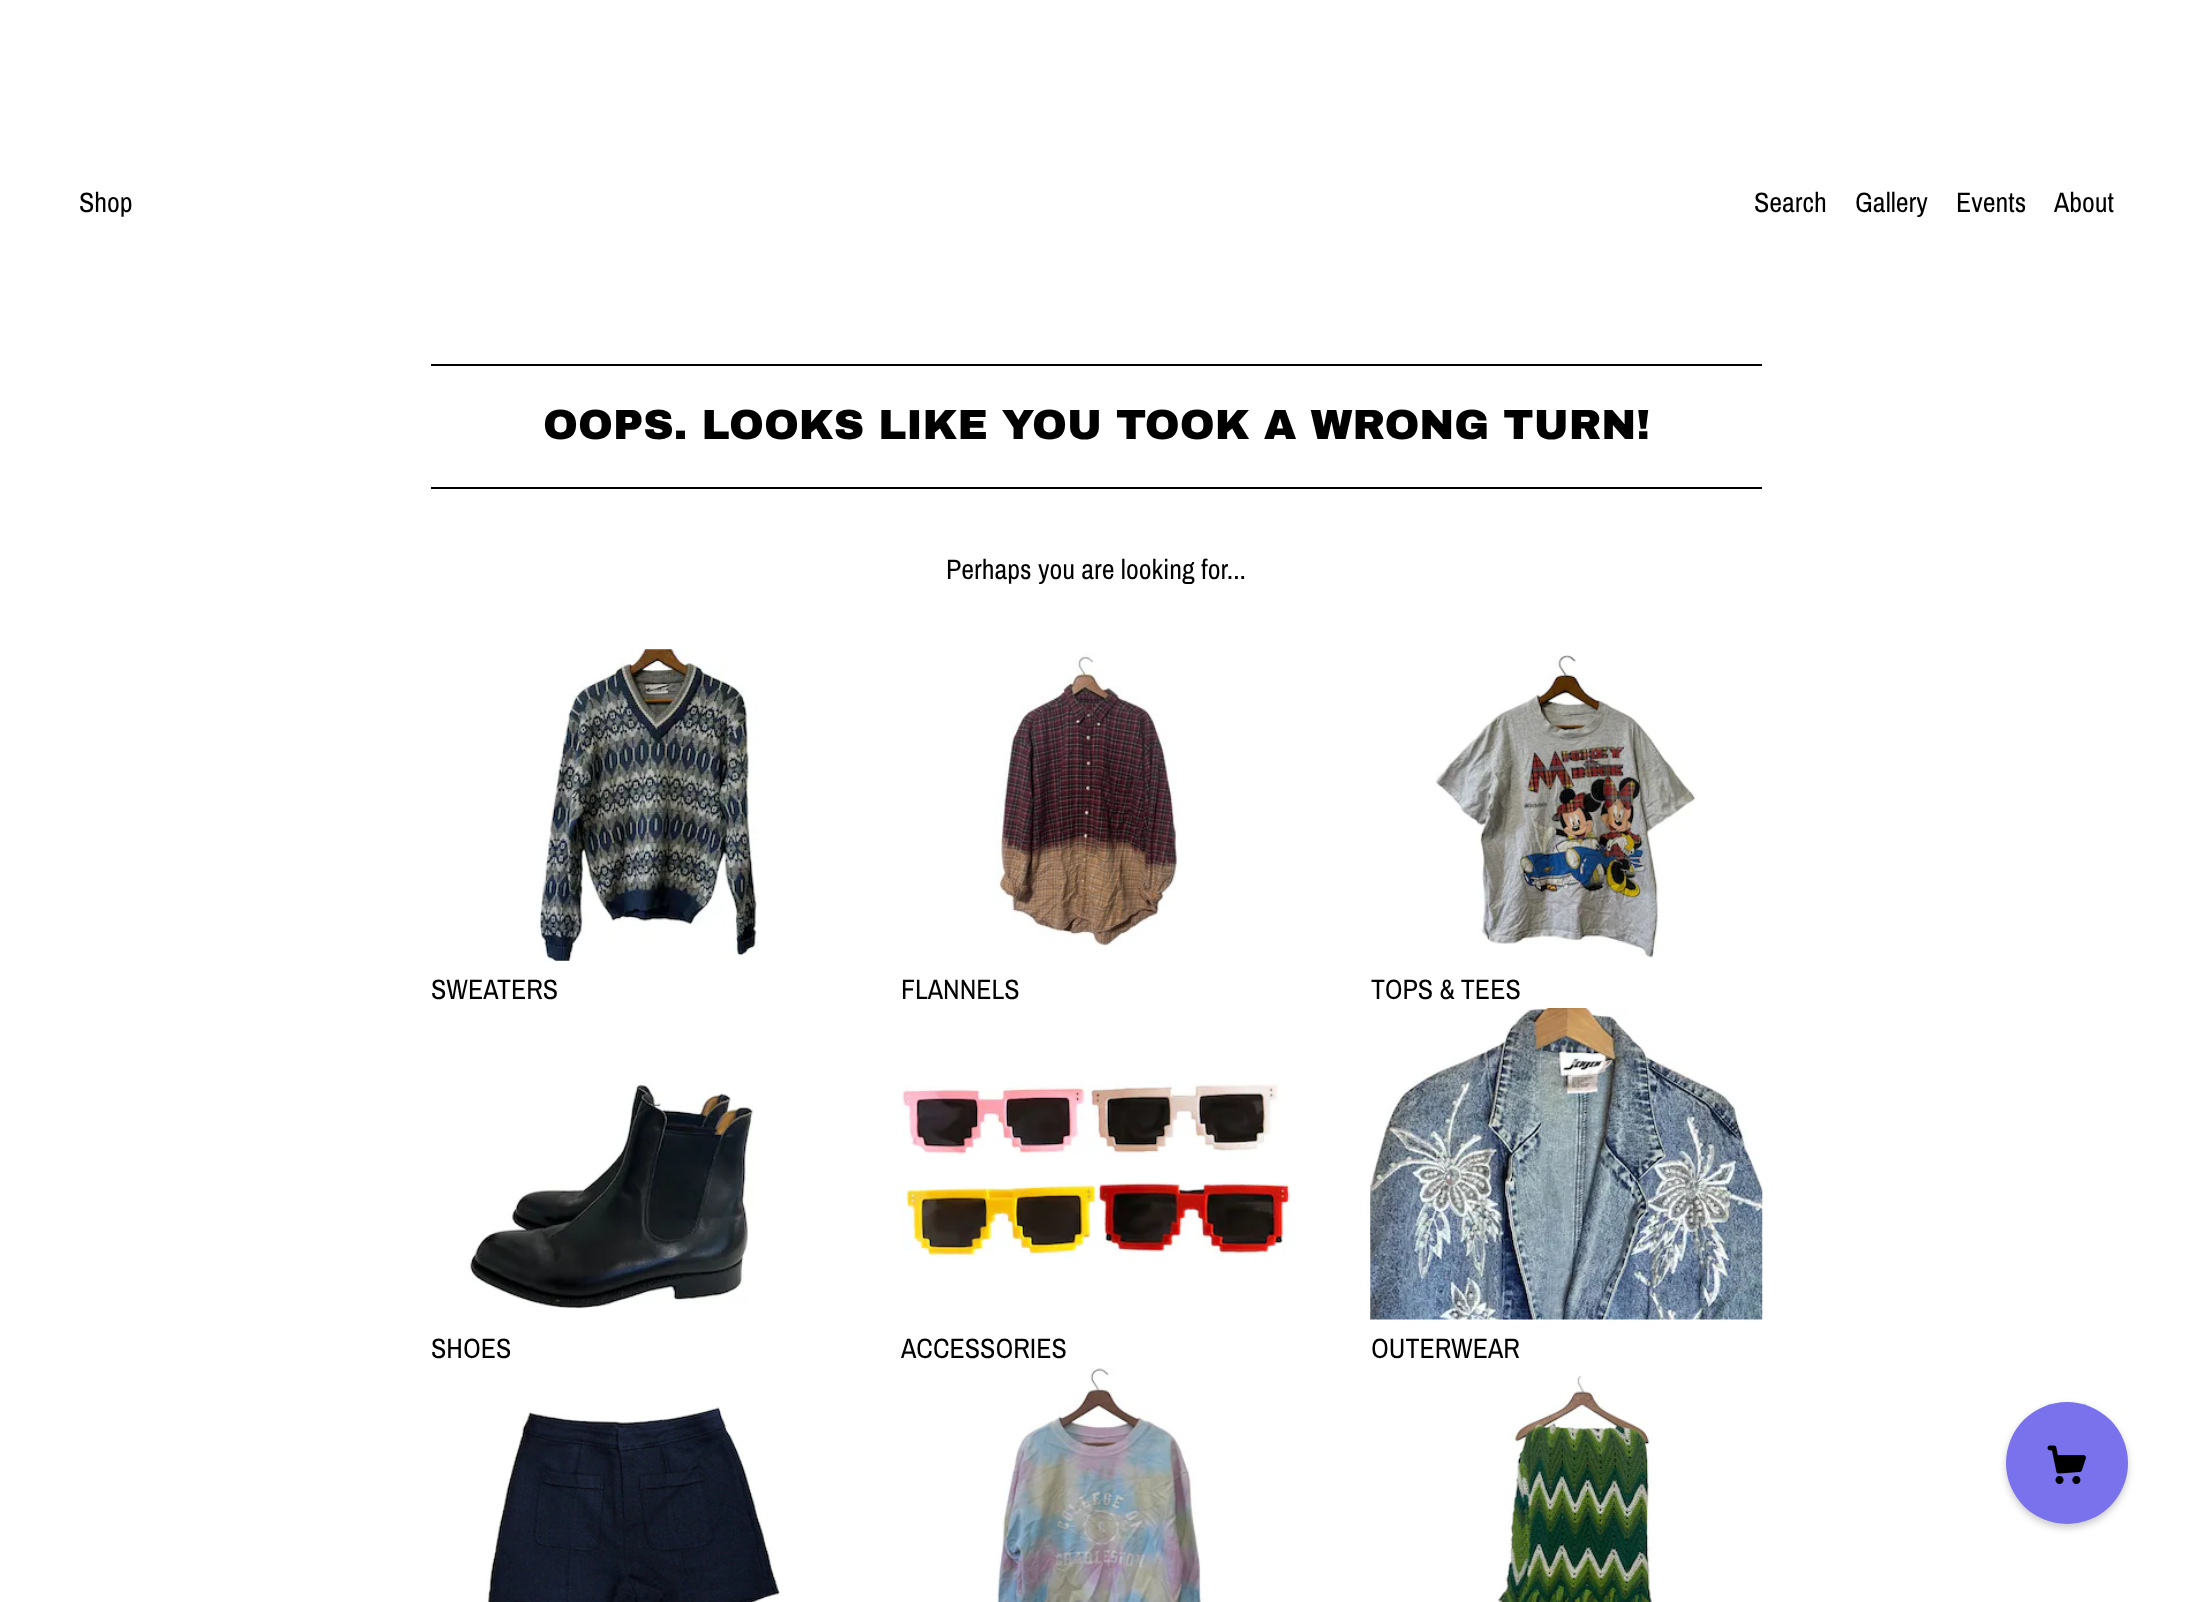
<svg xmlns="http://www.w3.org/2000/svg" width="2192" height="1602">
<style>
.a{font:28px Archivo Narrow;fill:#000}
.b{font:900 42px Archivo Black;fill:#000}
</style>
<rect width="100%" height="100%" fill="#fff"/>
<path fill="#000" d="M431 364h1331v2H431z"/>
<path fill="#000" d="M431 487h1331v2H431z"/>
<image href="1.png" x="536" y="649" width="223" height="312"/>
<image href="2.png" x="993" y="653" width="185" height="293"/>
<image href="3.png" x="1435" y="655" width="263" height="303"/>
<image href="4.png" x="467" y="1082" width="287" height="227"/>
<image href="5.png" x="901" y="1082" width="390" height="175"/>
<image href="6.png" x="1370" y="1008" width="393" height="312"/>
<image href="7.png" x="486" y="1405" width="294" height="197"/>
<image href="8.png" x="997" y="1368" width="207" height="234"/>
<image href="9.png" x="1497" y="1375" width="157" height="227"/>
<rect fill="#00000033" filter="blur(3.5px)" x="2006" y="1405" width="122" height="123" rx="61"/>
<circle fill="#7972ec" cx="2067" cy="1463" r="61"/>
<image href="10.png" x="2047" y="1445" width="39" height="39"/>
<text class="a" x="79" y="212">Shop</text>
<text class="a" x="1754" y="212">Search</text>
<text class="a" x="1855" y="212">Gallery</text>
<text class="a" x="1956" y="212">Events</text>
<text class="a" x="2054" y="212">About</text>
<text class="b" x="543" y="439">OOPS. LOOKS LIKE YOU TOOK A WRONG TURN!</text>
<text class="a" x="946" y="579">Perhaps you are looking for...</text>
<text class="a" x="431" y="999">SWEATERS</text>
<text class="a" x="901" y="999">FLANNELS</text>
<text class="a" x="1371" y="999">TOPS &amp; TEES</text>
<text class="a" x="431" y="1358">SHOES</text>
<text class="a" x="901" y="1358">ACCESSORIES</text>
<text class="a" x="1371" y="1358">OUTERWEAR</text>
</svg>
